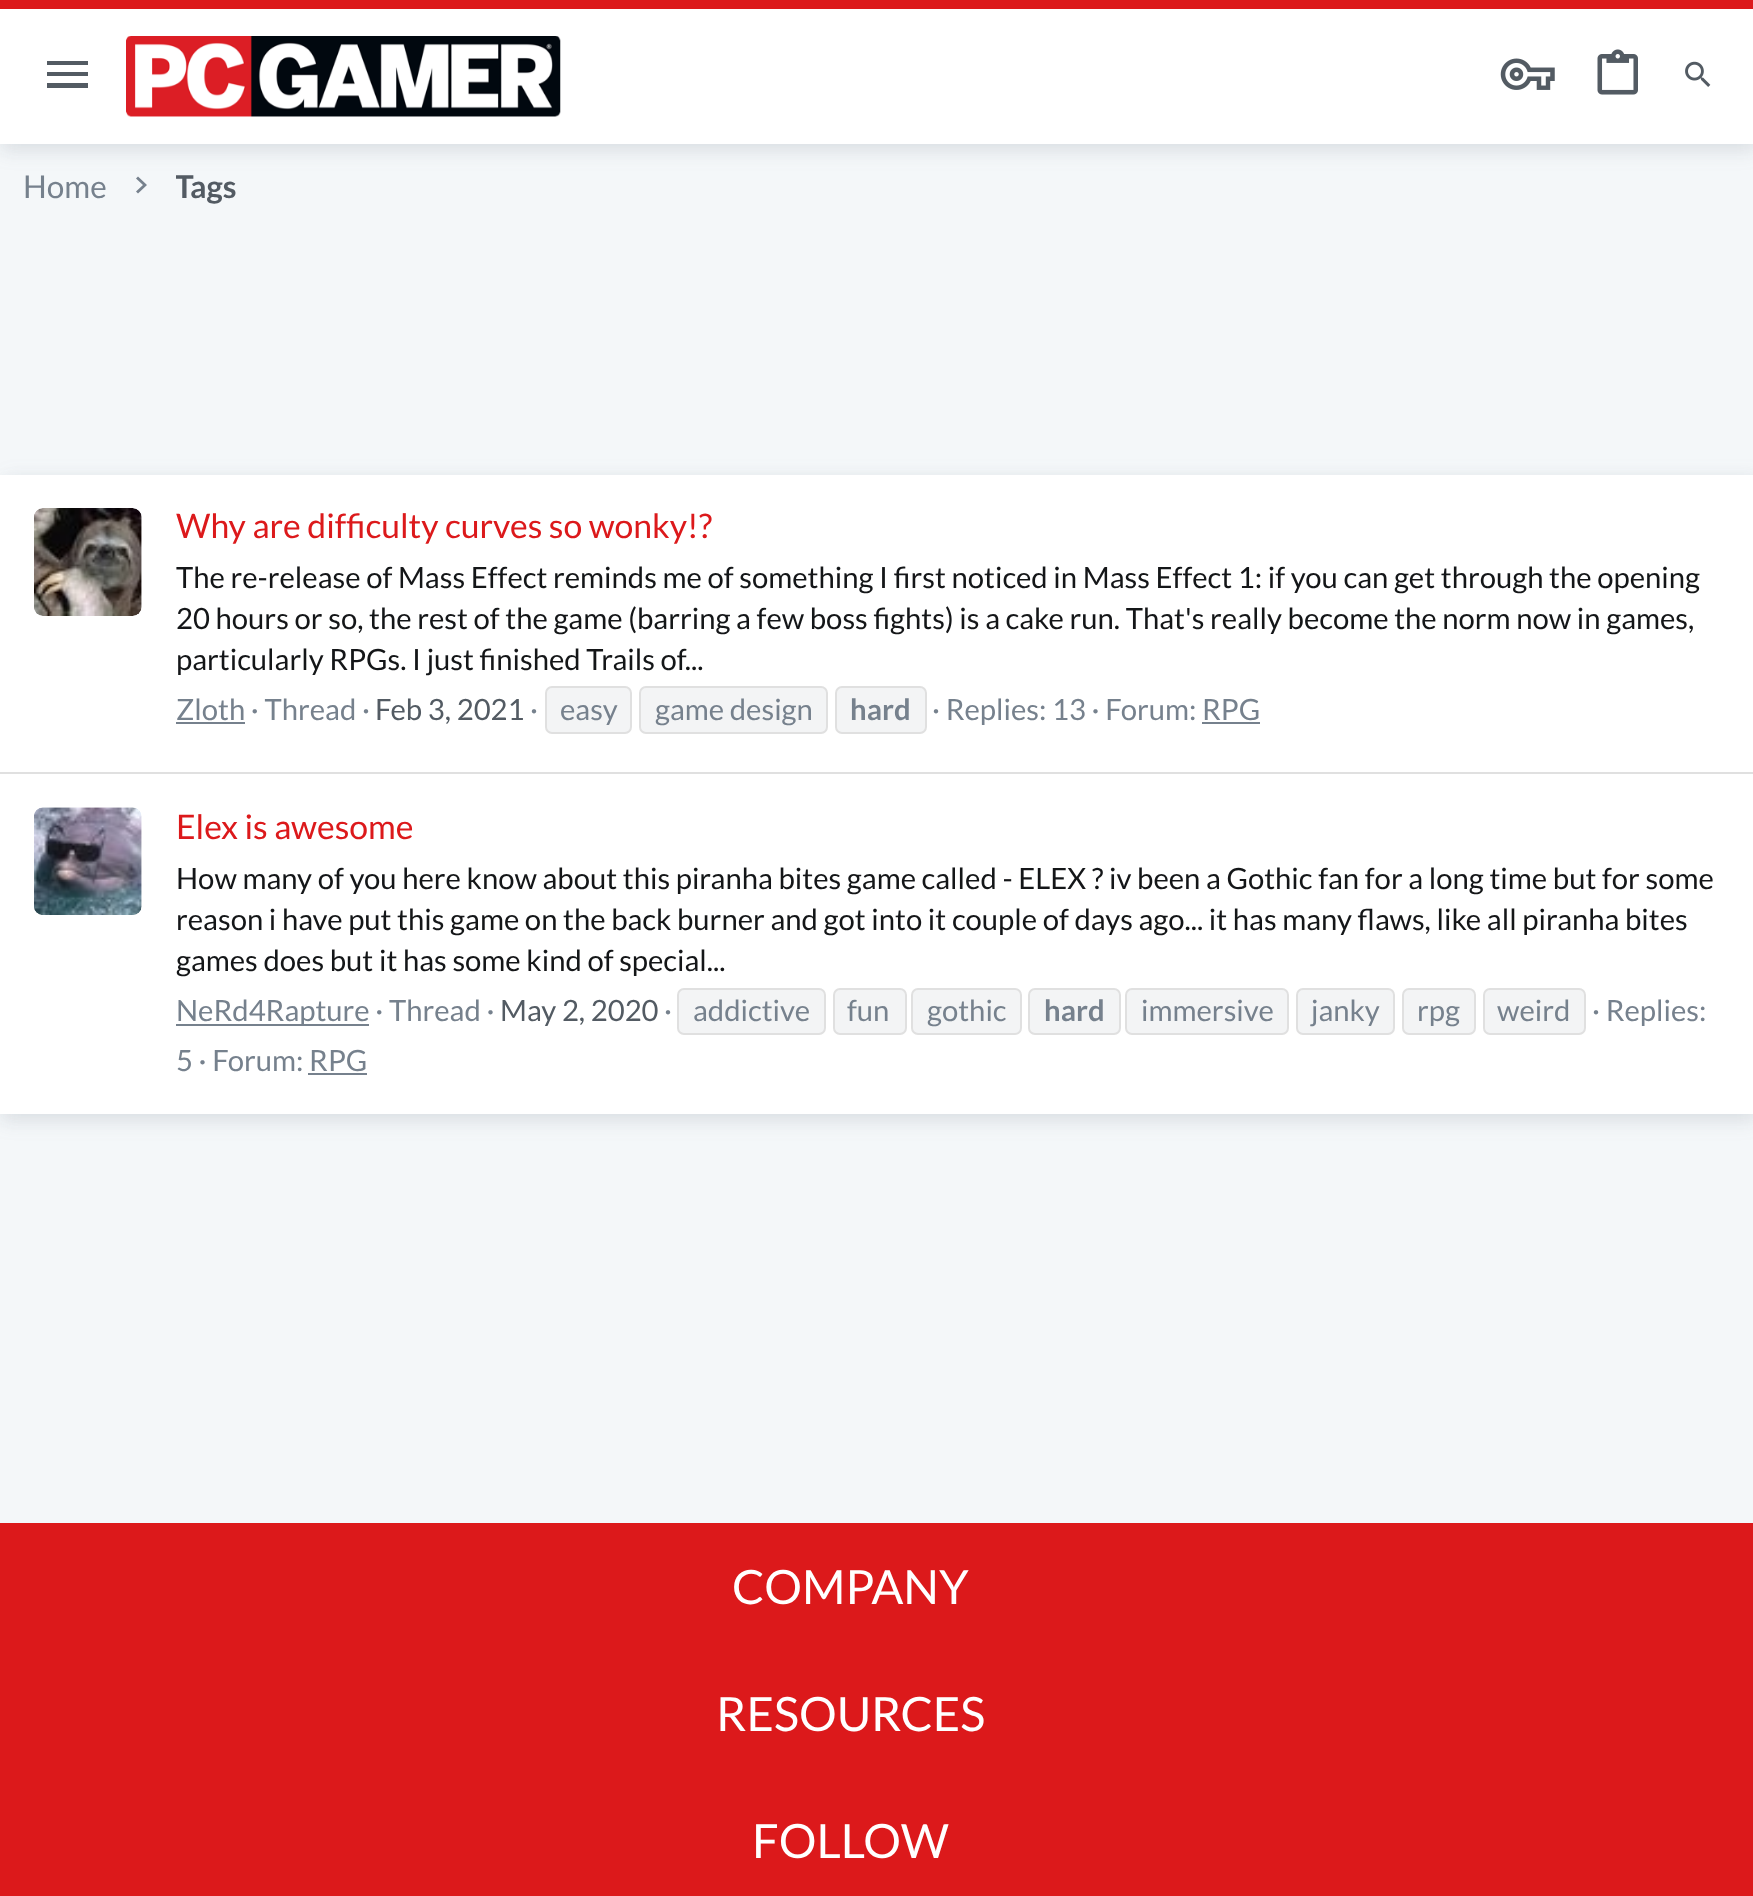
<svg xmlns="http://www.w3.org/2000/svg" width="1753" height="1896">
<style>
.a{font:31.5px Lato;fill:#76818d}
.b{font:bold 31.5px Lato;fill:#535b63}
.c{font:33.75px Lato;fill:#dc191b}
.d{font:29.25px Lato;fill:#141618}
.e{font:29.25px Lato;fill:#76818d}
.f{font:29.25px Lato;fill:#535b63}
.g{font:bold 29.25px Lato;fill:#76818d}
.h{font:47.25px Lato;fill:#fff}
</style>
<defs>
<clipPath id="clip1"><path d="M176 164h60v45H176z"/></clipPath>
</defs>
<rect width="100%" height="100%" fill="#f4f7f9"/>
<path fill="#6b778014" filter="blur(9px)" d="M5 0h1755v144H5z"/>
<path fill="#76818d" d="M136 191.5l7-6.5l-7-6.5l2-2l9 8.5l-9 8.5z"/>
<path fill="#6b77801f" filter="blur(9px)" d="M0 9h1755v144H0z"/>
<path fill="#fff" d="M0 9h1753v135H0z"/>
<path fill="#dc191b" d="M0 0h1753v9H0z"/>
<path fill="#535b63" d="M47 61h41v4h-41zm0 11h41v4h-41zm0 11h41v5h-41z"/>
<image href="1.png" x="126" y="36" width="435" height="81"/>
<image href="2.png" x="1500" y="58" width="55" height="32"/>
<image href="3.png" x="1597" y="49" width="41" height="46"/>
<image href="4.png" x="1685" y="61" width="26" height="26"/>
<path fill="#6b778014" filter="blur(9px)" d="M5 475h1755v639H5z"/>
<path fill="#6b77801f" filter="blur(9px)" d="M0 484h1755v639H0z"/>
<path fill="#fff" d="M0 475h1753v639H0z"/>
<image href="5.png" x="34" y="508" width="108" height="108"/>
<path fill="#76818d" d="M176 722h69v2H176z"/>
<rect fill="#f3f4f5" stroke="#e0e0e0" stroke-width="2" x="546" y="687" width="85" height="46" rx="6"/>
<rect fill="#f3f4f5" stroke="#e0e0e0" stroke-width="2" x="640" y="687" width="187" height="46" rx="6"/>
<rect fill="#f3f4f5" stroke="#e0e0e0" stroke-width="2" x="836" y="687" width="90" height="46" rx="6"/>
<path fill="#76818d" d="M1202 722h58v2H1202z"/>
<path fill="#e0e0e0" d="M0 772h1753v2H0z"/>
<image href="6.png" x="34" y="807" width="108" height="108"/>
<path fill="#76818d" d="M176 1024h193v2H176z"/>
<rect fill="#f3f4f5" stroke="#e0e0e0" stroke-width="2" x="678" y="989" width="147" height="45" rx="6"/>
<rect fill="#f3f4f5" stroke="#e0e0e0" stroke-width="2" x="834" y="989" width="72" height="45" rx="6"/>
<rect fill="#f3f4f5" stroke="#e0e0e0" stroke-width="2" x="912" y="989" width="109" height="45" rx="6"/>
<rect fill="#f3f4f5" stroke="#e0e0e0" stroke-width="2" x="1029" y="989" width="91" height="45" rx="6"/>
<rect fill="#f3f4f5" stroke="#e0e0e0" stroke-width="2" x="1126" y="989" width="162" height="45" rx="6"/>
<rect fill="#f3f4f5" stroke="#e0e0e0" stroke-width="2" x="1297" y="989" width="97" height="45" rx="6"/>
<rect fill="#f3f4f5" stroke="#e0e0e0" stroke-width="2" x="1403" y="989" width="72" height="45" rx="6"/>
<rect fill="#f3f4f5" stroke="#e0e0e0" stroke-width="2" x="1484" y="989" width="101" height="45" rx="6"/>
<path fill="#76818d" d="M308 1073h59v2H308z"/>
<path fill="#dc191b" d="M0 1523h1753v373H0z"/>
<text class="a" x="23" y="198">Home</text>
<g clip-path="url(#clip1)">
<text class="b" x="175" y="198">Tags</text>
</g>
<text class="c" x="176" y="538">Why are difficulty curves so wonky!?</text>
<text class="d" x="176" y="588">The re-release of Mass Effect reminds me of something I first noticed in Mass Effect 1: if you can get through the opening</text>
<text class="d" x="176" y="629">20 hours or so, the rest of the game (barring a few boss fights) is a cake run. That's really become the norm now in games,</text>
<text class="d" x="176" y="670">particularly RPGs. I just finished Trails of...</text>
<text class="e" x="176" y="720">Zloth · Thread ·</text>
<text class="f" x="375" y="720">Feb 3, 2021</text>
<text class="e" x="530" y="720">·</text>
<text class="e" x="560" y="720">easy</text>
<text class="e" x="655" y="720">game design</text>
<text class="g" x="850" y="720">hard</text>
<text class="e" x="932" y="720">· Replies: 13 · Forum: RPG</text>
<text class="c" x="176" y="839">Elex is awesome</text>
<text class="d" x="176" y="889">How many of you here know about this piranha bites game called - ELEX ? iv been a Gothic fan for a long time but for some</text>
<text class="d" x="176" y="930">reason i have put this game on the back burner and got into it couple of days ago... it has many flaws, like all piranha bites</text>
<text class="d" x="176" y="971">games does but it has some kind of special...</text>
<text class="e" x="176" y="1021">NeRd4Rapture · Thread ·</text>
<text class="f" x="500" y="1021">May 2, 2020</text>
<text class="e" x="664" y="1021">·</text>
<text class="e" x="693" y="1021">addictive</text>
<text class="e" x="847" y="1021">fun</text>
<text class="e" x="927" y="1021">gothic</text>
<text class="g" x="1044" y="1021">hard</text>
<text class="e" x="1141" y="1021">immersive</text>
<text class="e" x="1311" y="1021">janky</text>
<text class="e" x="1417" y="1021">rpg</text>
<text class="e" x="1497" y="1021">weird</text>
<text class="e" x="1592" y="1021">· Replies:</text>
<text class="e" x="176" y="1071">5 · Forum: RPG</text>
<text class="h" x="732" y="1604">COMPANY</text>
<text class="h" x="716" y="1731">RESOURCES</text>
<text class="h" x="752" y="1858">FOLLOW</text>
</svg>
